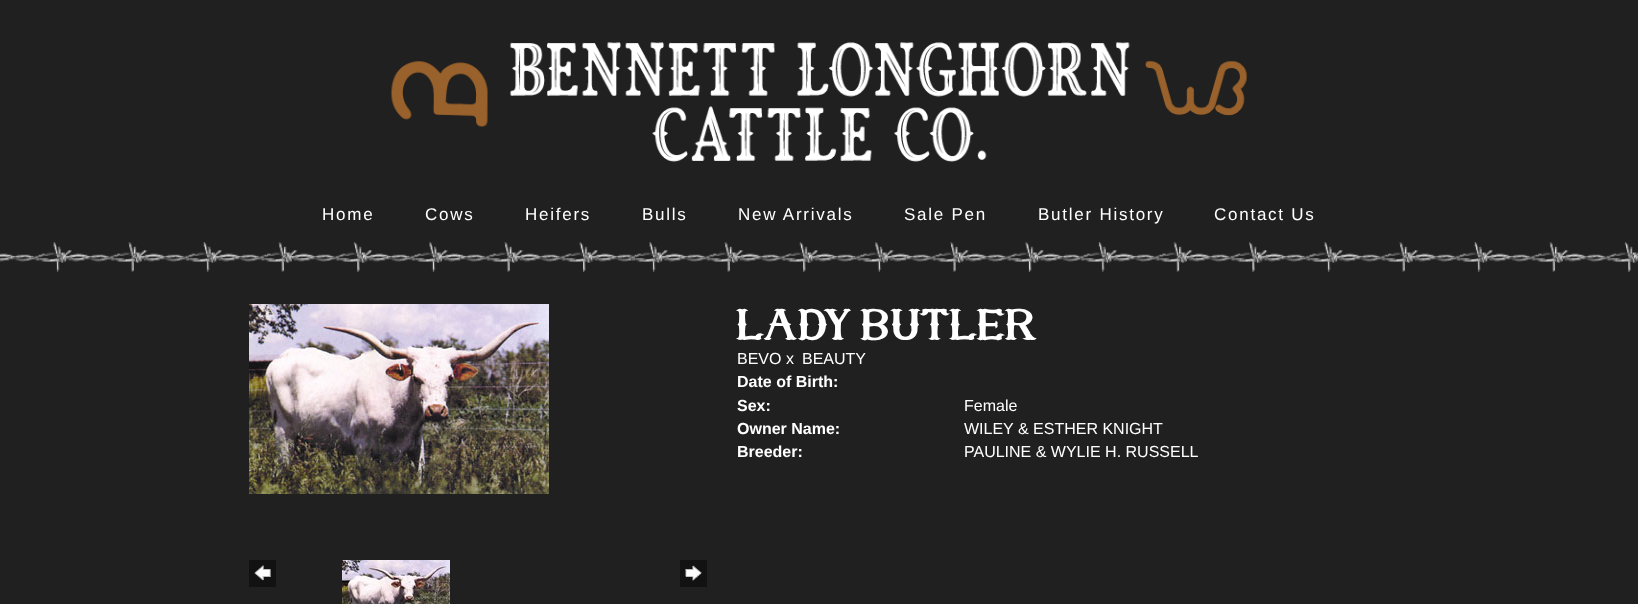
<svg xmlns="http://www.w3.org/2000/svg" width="1638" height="604">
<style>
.a{font:17px Liberation Sans;letter-spacing:1.75px;fill:#fff}
.b{font:bold 40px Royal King;letter-spacing:2px;fill:#fff}
.c{font:16px Liberation Sans;fill:#fff}
.d{font:bold 16px Liberation Sans;fill:#fff}
</style>
<rect width="100%" height="100%" fill="#202020"/>
<image href="1.png" x="391" y="42" width="857" height="120"/>
<image href="2.png" x="0" y="242" width="1638" height="30"/>
<image href="3.png" x="249" y="304" width="300" height="190"/>
<image href="4.png" x="249" y="560" width="27" height="27"/>
<image href="5.png" x="342" y="560" width="108" height="44"/>
<image href="6.png" x="680" y="560" width="27" height="27"/>
<text class="a" x="322" y="220">Home</text>
<text class="a" x="425" y="220">Cows</text>
<text class="a" x="525" y="220">Heifers</text>
<text class="a" x="642" y="220">Bulls</text>
<text class="a" x="738" y="220">New Arrivals</text>
<text class="a" x="904" y="220">Sale Pen</text>
<text class="a" x="1038" y="220">Butler History</text>
<text class="a" x="1214" y="220">Contact Us</text>
<text class="b" x="737" y="340">LADY BUTLER</text>
<text class="c" x="737" y="364">BEVO x</text>
<text class="c" x="802" y="364">BEAUTY</text>
<text class="d" x="737" y="387">Date of Birth:</text>
<text class="d" x="737" y="411">Sex:</text>
<text class="c" x="964" y="411">Female</text>
<text class="d" x="737" y="434">Owner Name:</text>
<text class="c" x="964" y="434">WILEY &amp; ESTHER KNIGHT</text>
<text class="d" x="737" y="457">Breeder:</text>
<text class="c" x="964" y="457">PAULINE &amp; WYLIE H. RUSSELL</text>
</svg>
